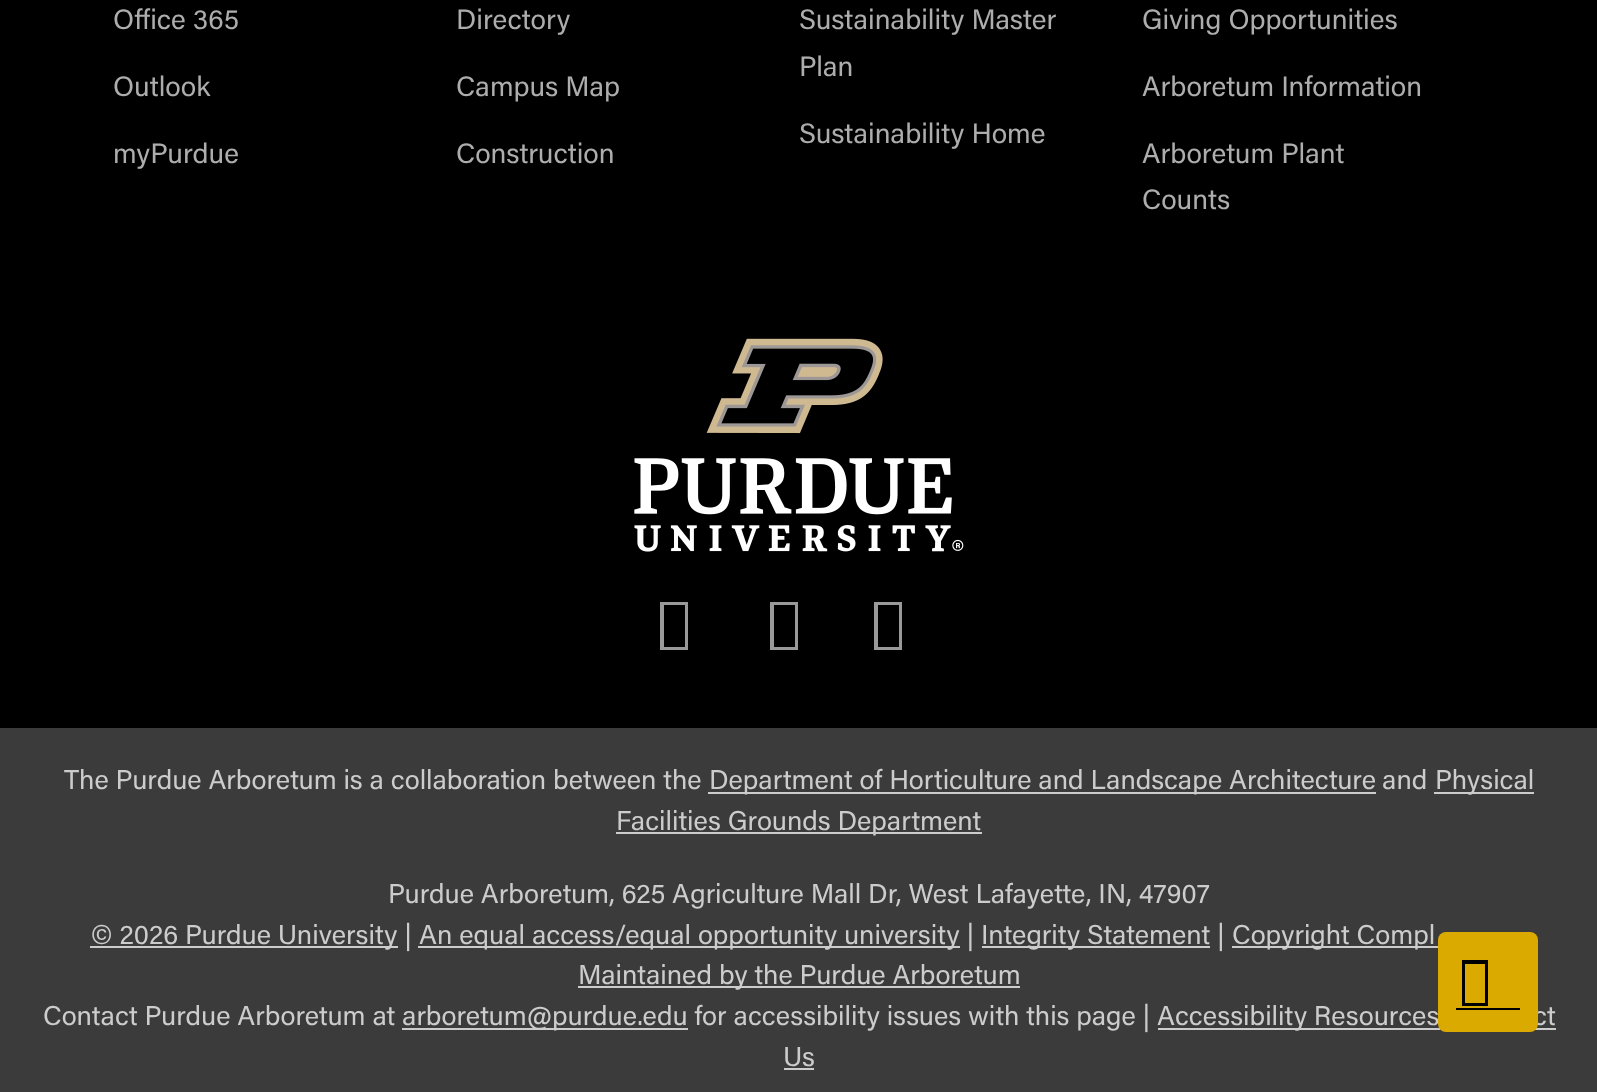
<svg xmlns="http://www.w3.org/2000/svg" width="1597" height="1092">
<style>
.a{font:28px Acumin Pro;fill:#adadad}
.b{font:27.2px Acumin Pro;fill:#ccc}
</style>
<rect width="100%" height="100%" fill="#3b3b3b"/>
<path fill="#000" d="M0 0h1597v728H0z"/>
<image href="1.png" x="634" y="338" width="330" height="214"/>
<path fill="#999" d="M660 650v-48h28v48zm4-3h21v-42h-21z"/>
<path fill="#999" d="M770 650v-48h28v48zm4-3h21v-42h-21z"/>
<path fill="#999" d="M874 650v-48h28v48zm4-3h21v-42h-21z"/>
<path fill="#ccc" d="M708 792h668v2H708z"/>
<path fill="#ccc" d="M1434 792h100v2H1434z"/>
<path fill="#ccc" d="M616 832h366v2H616z"/>
<path fill="#ccc" d="M90 946h308v2H90z"/>
<path fill="#ccc" d="M418 946h542v2H418z"/>
<path fill="#ccc" d="M982 946h228v2H982z"/>
<path fill="#ccc" d="M1232 946h206v2H1232z"/>
<path fill="#ccc" d="M578 986h442v2H578z"/>
<path fill="#ccc" d="M402 1028h286v2H402z"/>
<path fill="#ccc" d="M1158 1028h282v2H1158z"/>
<path fill="#ccc" d="M1535 1028h21v2H1535z"/>
<path fill="#ccc" d="M784 1068h30v2H784z"/>
<text class="a" x="113" y="29">Office 365</text>
<text class="a" x="113" y="96">Outlook</text>
<text class="a" x="113" y="163">myPurdue</text>
<text class="a" x="456" y="29">Directory</text>
<text class="a" x="456" y="96">Campus Map</text>
<text class="a" x="456" y="163">Construction</text>
<text class="a" x="799" y="29">Sustainability Master</text>
<text class="a" x="799" y="76">Plan</text>
<text class="a" x="799" y="143">Sustainability Home</text>
<text class="a" x="1142" y="29">Giving Opportunities</text>
<text class="a" x="1142" y="96">Arboretum Information</text>
<text class="a" x="1142" y="163">Arboretum Plant</text>
<text class="a" x="1142" y="209">Counts</text>
<text class="b" x="64" y="789">The Purdue Arboretum is a collaboration between the</text>
<text class="b" x="709" y="789">Department of Horticulture and Landscape Architecture</text>
<text class="b" x="1382" y="789">and</text>
<text class="b" x="1435" y="789">Physical</text>
<text class="b" x="616" y="830">Facilities Grounds Department</text>
<text class="b" x="388" y="903">Purdue Arboretum, 625 Agriculture Mall Dr, West Lafayette, IN, 47907</text>
<text class="b" x="91" y="944">© 2026 Purdue University |</text>
<text class="b" x="419" y="944">An equal access/equal opportunity university |</text>
<text class="b" x="981" y="944">Integrity Statement |</text>
<text class="b" x="1232" y="944">Copyright Compl</text>
<text class="b" x="578" y="984">Maintained by the Purdue Arboretum</text>
<text class="b" x="43" y="1025">Contact Purdue Arboretum at</text>
<text class="b" x="402" y="1025">arboretum@purdue.edu for accessibility issues with this page |</text>
<text class="b" x="1157" y="1025">Accessibility Resources</text>
<text class="b" x="1533" y="1025">ct</text>
<text class="b" x="783" y="1066">Us</text>
<rect fill="#daaa00" x="1438" y="932" width="100" height="100" rx="8"/>
<path fill="#000" d="M1462 1006v-46h26v46zm3-3h20v-39h-20z"/>
<path fill="#000" d="M1456 1008h64v2H1456z"/>
</svg>
